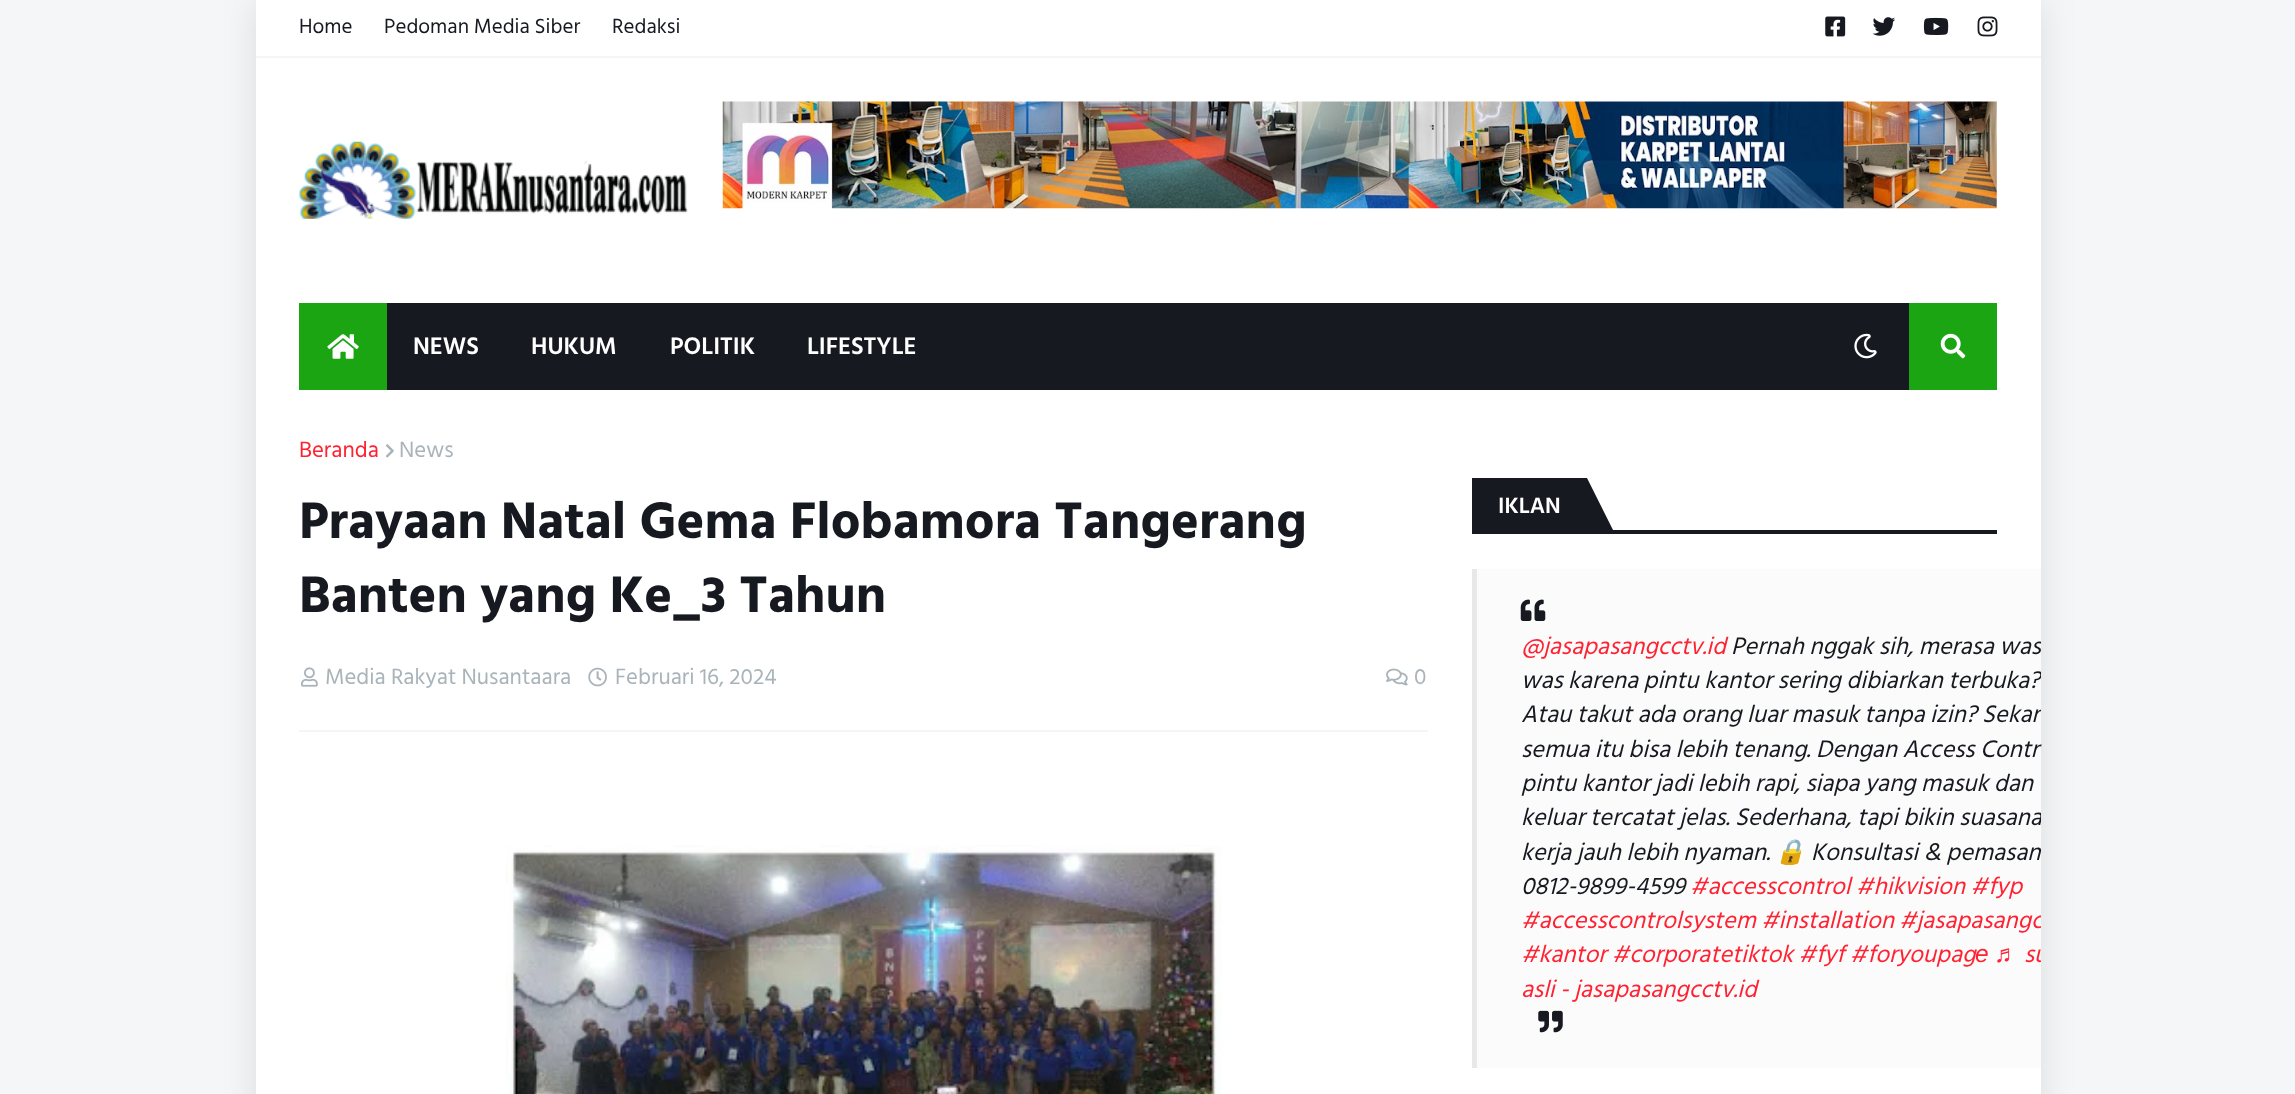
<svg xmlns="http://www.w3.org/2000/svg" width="2295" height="1094">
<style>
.a{font:21px Hind Siliguri;fill:#171921}
.b{font:600 24.5px Hind Siliguri;fill:#fff}
.c{font:22.75px Hind Siliguri;fill:#ff2232}
.d{font:22.75px Hind Siliguri;fill:#a9b4ba}
.e{font:bold 52.5px Hind Siliguri;fill:#171921}
.f{font:600 22.75px Hind Siliguri;fill:#fff}
.g{font:italic 24.5px Hind Siliguri;fill:#ff2232}
.h{font:italic 24.5px Hind Siliguri;fill:#171921}
.i{font:italic 24.5px Noto Color Emoji;fill:#171921}
.j{font:italic 24.5px Liberation Sans;fill:#ff2232}
</style>
<defs>
<clipPath id="clip1"><path d="M256 390h1785v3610H256z"/></clipPath>
</defs>
<rect width="100%" height="100%" fill="#f5f6f7"/>
<path fill="#0000001a" filter="blur(17.5px)" d="M256 0h1785v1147H256z"/>
<path fill="#fff" d="M256 0h1785v1094H256z"/>
<path fill="#f5f5f5" d="M256 56h1785v2H256z"/>
<image href="1.png" x="1825" y="16" width="21" height="21"/>
<image href="2.png" x="1872" y="17" width="24" height="19"/>
<image href="3.png" x="1923" y="17" width="26" height="18"/>
<image href="4.png" x="1977" y="16" width="21" height="21"/>
<image href="5.png" x="299" y="141" width="389" height="78"/>
<image href="6.png" x="722" y="101" width="1275" height="108"/>
<path fill="#171921" d="M387 303h1522v87H387z"/>
<path fill="#1ba512" d="M299 303h88v87H299z"/>
<image href="7.png" x="327" y="334" width="32" height="25"/>
<image href="8.png" x="1854" y="333" width="23" height="26"/>
<path fill="#1ba512" d="M1909 303h88v87H1909z"/>
<image href="9.png" x="1940" y="333" width="26" height="26"/>
<path fill="#f5f5f5" d="M299 730h1129v2H299z"/>
<image href="10.png" x="385" y="444" width="9" height="14"/>
<image href="11.png" x="301" y="667" width="17" height="20"/>
<image href="12.png" x="588" y="667" width="19" height="20"/>
<image href="13.png" x="1386" y="668" width="22" height="18"/>
<image href="14.png" x="506" y="845" width="716" height="249"/>
<path fill="#171921" d="M1613 530h384v4H1613z"/>
<path fill="#171921" d="M1472 478h115v56H1472z"/>
<path fill="#171921" d="M1587 534v-56l28 56z"/>
<path fill="#fbfbfb" d="M1477 569h564v499H1477z"/>
<path fill="#e8e8e8" d="M1472 569h5v499H1472z"/>
<image href="15.png" x="1520" y="599" width="26" height="22"/>
<image href="16.png" x="1538" y="1010" width="25" height="23"/>
<text class="a" x="299" y="33">Home</text>
<text class="a" x="384" y="33">Pedoman Media Siber</text>
<text class="a" x="612" y="33">Redaksi</text>
<text class="b" x="413" y="354">NEWS</text>
<text class="b" x="531" y="354">HUKUM</text>
<text class="b" x="670" y="354">POLITIK</text>
<text class="b" x="807" y="354">LIFESTYLE</text>
<text class="c" x="299" y="457">Beranda</text>
<text class="d" x="399" y="457">News</text>
<text class="e" x="299" y="538">Prayaan Natal Gema Flobamora Tangerang</text>
<text class="e" x="299" y="612">Banten yang Ke_3 Tahun</text>
<text class="d" x="325" y="684">Media Rakyat Nusantaara</text>
<text class="d" x="615" y="684">Februari 16, 2024</text>
<text class="d" x="1414" y="684">0</text>
<text class="f" x="1498" y="513">IKLAN</text>
<text class="g" x="1521" y="654">@jasapasangcctv.id</text>
<g clip-path="url(#clip1)">
<text class="h" x="1731" y="654">Pernah nggak sih, merasa was</text>
<text class="h" x="1521" y="688">was karena pintu kantor sering dibiarkan terbuka?</text>
</g>
<text class="h" x="1521" y="722">Atau takut ada orang luar masuk tanpa izin?</text>
<g clip-path="url(#clip1)">
<text class="h" x="1982" y="722">Sekar</text>
</g>
<text class="h" x="1521" y="757">semua itu bisa lebih tenang. Dengan Access Contr</text>
<text class="h" x="1521" y="791">pintu kantor jadi lebih rapi, siapa yang masuk dan</text>
<text class="h" x="1521" y="825">keluar tercatat jelas.</text>
<g clip-path="url(#clip1)">
<text class="h" x="1735" y="825">Sederhana, tapi bikin suasana</text>
</g>
<text class="h" x="1521" y="860">kerja jauh lebih nyaman.</text>
<text class="i" x="1775" y="860">🔒</text>
<g clip-path="url(#clip1)">
<text class="h" x="1811" y="860">Konsultasi &amp; pemasan</text>
</g>
<text class="h" x="1521" y="894">0812-9899-4599</text>
<text class="g" x="1690" y="894">#accesscontrol #hikvision #fyp</text>
<text class="g" x="1521" y="928">#accesscontrolsystem #installation</text>
<g clip-path="url(#clip1)">
<text class="g" x="1899" y="928">#jasapasangc</text>
</g>
<text class="g" x="1521" y="962">#kantor #corporatetiktok #fyf #foryoupag</text>
<text class="j" x="1975" y="962">е</text>
<text class="j" x="1994" y="962">♬</text>
<g clip-path="url(#clip1)">
<text class="g" x="2024" y="962">su</text>
</g>
<text class="g" x="1521" y="997">asli - jasapasangcctv.id</text>
</svg>
